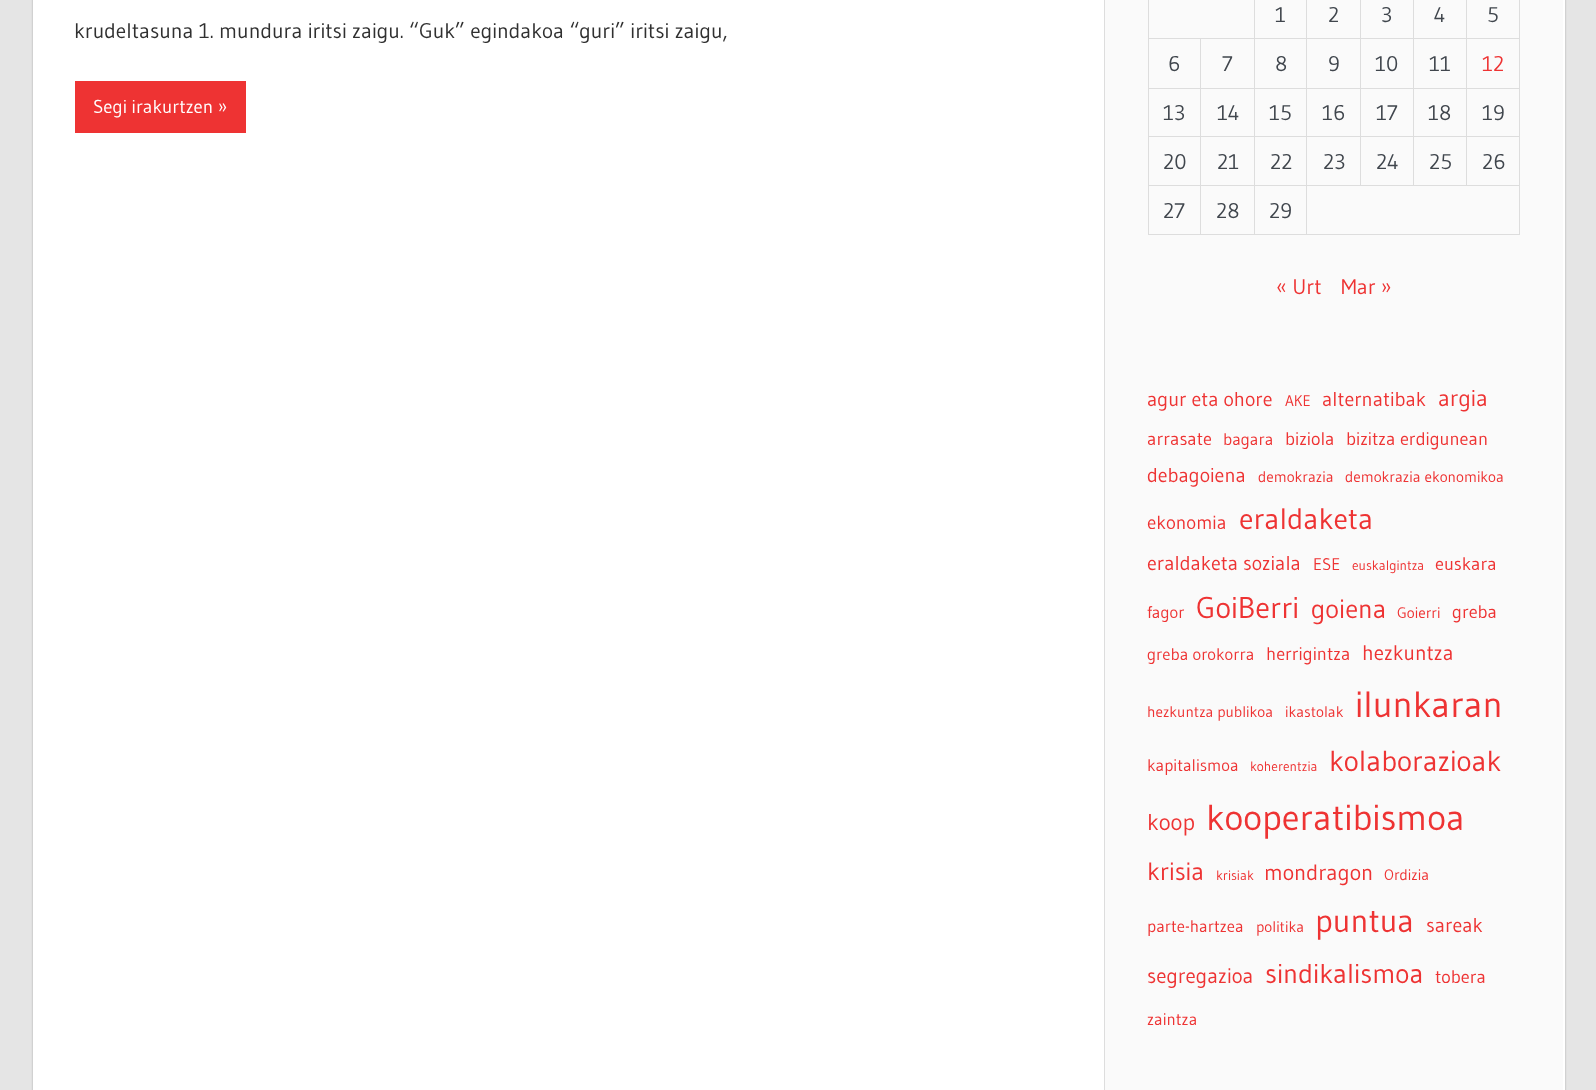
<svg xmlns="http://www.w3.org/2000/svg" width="1596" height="1090">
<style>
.a{font:21.25px Gudea;fill:#303030}
.b{font:18.75px Gudea;fill:#fff}
.c{font:21.25px Gudea;fill:#40464d}
.d{font:21.25px Gudea;fill:#e33}
.e{font:20px Gudea;fill:#e33}
.f{font:15.25px Gudea;fill:#e33}
.g{font:23px Gudea;fill:#e33}
.h{font:18.25px Gudea;fill:#e33}
.i{font:16.75px Gudea;fill:#e33}
.j{font:19px Gudea;fill:#e33}
.k{font:29.5px Gudea;fill:#e33}
.l{font:13.5px Gudea;fill:#e33}
.m{font:30px Gudea;fill:#e33}
.n{font:26.5px Gudea;fill:#e33}
.o{font:21px Gudea;fill:#e33}
.p{font:36.5px Gudea;fill:#e33}
.q{font:29px Gudea;fill:#e33}
.r{font:36.25px Gudea;fill:#e33}
.s{font:25px Gudea;fill:#e33}
.t{font:22px Gudea;fill:#e33}
.u{font:32.5px Gudea;fill:#e33}
.v{font:27.25px Gudea;fill:#e33}
</style>
<rect width="100%" height="100%" fill="#e5e5e5"/>
<path fill="#aaa" filter="blur(1px)" d="M33 -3h1532v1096H33z"/>
<path fill="#fff" d="M33 0h1532v1090H33z"/>
<path fill="#e33" d="M75 81h171v52H75z"/>
<path fill="#fafafa" d="M1105 0h458v1090H1105z"/>
<path fill="#ddd" d="M1104 0h1v1090H1104z"/>
<path fill="#ddd" d="M1466 38h54v1H1466z"/>
<path fill="#ddd" d="M1466 88h54v1H1466z"/>
<path fill="#ddd" d="M1466 136h54v1H1466z"/>
<path fill="#ddd" d="M1306 185h214v1H1306z"/>
<path fill="#ddd" d="M1466 136h1v50H1466z"/>
<path fill="#ddd" d="M1413 136h55v1H1413z"/>
<path fill="#ddd" d="M1466 88h1v50H1466z"/>
<path fill="#ddd" d="M1413 88h55v1H1413z"/>
<path fill="#ddd" d="M1466 38h1v51H1466z"/>
<path fill="#ddd" d="M1413 38h55v1H1413z"/>
<path fill="#ddd" d="M1413 136h1v50H1413z"/>
<path fill="#ddd" d="M1360 136h54v1H1360z"/>
<path fill="#ddd" d="M1413 88h1v50H1413z"/>
<path fill="#ddd" d="M1360 88h54v1H1360z"/>
<path fill="#ddd" d="M1413 38h1v51H1413z"/>
<path fill="#ddd" d="M1360 38h54v1H1360z"/>
<path fill="#ddd" d="M1360 136h1v50H1360z"/>
<path fill="#ddd" d="M1306 136h55v1H1306z"/>
<path fill="#ddd" d="M1360 88h1v50H1360z"/>
<path fill="#ddd" d="M1306 88h55v1H1306z"/>
<path fill="#ddd" d="M1360 38h1v51H1360z"/>
<path fill="#ddd" d="M1306 38h55v1H1306z"/>
<path fill="#ddd" d="M1519 185h1v50H1519z"/>
<path fill="#ddd" d="M1306 234h214v1H1306z"/>
<path fill="#ddd" d="M1306 185h1v50H1306z"/>
<path fill="#ddd" d="M1254 185h54v1H1254z"/>
<path fill="#ddd" d="M1306 136h1v50H1306z"/>
<path fill="#ddd" d="M1254 136h54v1H1254z"/>
<path fill="#ddd" d="M1306 88h1v50H1306z"/>
<path fill="#ddd" d="M1254 88h54v1H1254z"/>
<path fill="#ddd" d="M1306 38h1v51H1306z"/>
<path fill="#ddd" d="M1254 38h54v1H1254z"/>
<path fill="#ddd" d="M1254 234h54v1H1254z"/>
<path fill="#ddd" d="M1254 185h1v50H1254z"/>
<path fill="#ddd" d="M1200 185h55v1H1200z"/>
<path fill="#ddd" d="M1254 136h1v50H1254z"/>
<path fill="#ddd" d="M1200 136h55v1H1200z"/>
<path fill="#ddd" d="M1254 88h1v50H1254z"/>
<path fill="#ddd" d="M1200 88h55v1H1200z"/>
<path fill="#ddd" d="M1254 38h1v51H1254z"/>
<path fill="#ddd" d="M1200 38h55v1H1200z"/>
<path fill="#ddd" d="M1254 0h1v39H1254z"/>
<path fill="#ddd" d="M1306 0h1v39H1306z"/>
<path fill="#ddd" d="M1360 0h1v39H1360z"/>
<path fill="#ddd" d="M1413 0h1v39H1413z"/>
<path fill="#ddd" d="M1466 0h1v39H1466z"/>
<path fill="#ddd" d="M1200 234h55v1H1200z"/>
<path fill="#ddd" d="M1200 185h1v50H1200z"/>
<path fill="#ddd" d="M1148 185h53v1H1148z"/>
<path fill="#ddd" d="M1200 136h1v50H1200z"/>
<path fill="#ddd" d="M1148 136h53v1H1148z"/>
<path fill="#ddd" d="M1200 88h1v50H1200z"/>
<path fill="#ddd" d="M1148 88h53v1H1148z"/>
<path fill="#ddd" d="M1200 38h1v51H1200z"/>
<path fill="#ddd" d="M1148 38h53v1H1148z"/>
<path fill="#ddd" d="M1148 234h53v1H1148z"/>
<path fill="#ddd" d="M1148 185h1v50H1148z"/>
<path fill="#ddd" d="M1148 136h1v50H1148z"/>
<path fill="#ddd" d="M1148 88h1v50H1148z"/>
<path fill="#ddd" d="M1148 0h1v89H1148z"/>
<path fill="#ddd" d="M1519 136h1v50H1519z"/>
<path fill="#ddd" d="M1519 88h1v50H1519z"/>
<path fill="#ddd" d="M1519 0h1v89H1519z"/>
<text class="a" x="74" y="38">krudeltasuna 1. mundura iritsi zaigu. “Guk” egindakoa “guri” iritsi zaigu,</text>
<text class="b" x="93" y="113">Segi irakurtzen »</text>
<text class="c" x="1275" y="22">1</text>
<text class="c" x="1328" y="22">2</text>
<text class="c" x="1381" y="22">3</text>
<text class="c" x="1434" y="22">4</text>
<text class="c" x="1487" y="22">5</text>
<text class="c" x="1168" y="71">6</text>
<text class="c" x="1222" y="71">7</text>
<text class="c" x="1275" y="71">8</text>
<text class="c" x="1328" y="71">9</text>
<text class="c" x="1375" y="71">10</text>
<text class="c" x="1429" y="71">11</text>
<text class="d" x="1482" y="71">12</text>
<text class="c" x="1163" y="120">13</text>
<text class="c" x="1217" y="120">14</text>
<text class="c" x="1269" y="120">15</text>
<text class="c" x="1322" y="120">16</text>
<text class="c" x="1376" y="120">17</text>
<text class="c" x="1428" y="120">18</text>
<text class="c" x="1482" y="120">19</text>
<text class="c" x="1163" y="169">20</text>
<text class="c" x="1217" y="169">21</text>
<text class="c" x="1270" y="169">22</text>
<text class="c" x="1323" y="169">23</text>
<text class="c" x="1376" y="169">24</text>
<text class="c" x="1429" y="169">25</text>
<text class="c" x="1482" y="169">26</text>
<text class="c" x="1163" y="218">27</text>
<text class="c" x="1216" y="218">28</text>
<text class="c" x="1269" y="218">29</text>
<text class="d" x="1276" y="294">« Urt</text>
<text class="d" x="1341" y="294">Mar »</text>
<text class="e" x="1147" y="406">agur eta ohore</text>
<text class="f" x="1285" y="406">AKE</text>
<text class="e" x="1322" y="406">alternatibak</text>
<text class="g" x="1438" y="406">argia</text>
<text class="h" x="1147" y="445">arrasate</text>
<text class="i" x="1223" y="445">bagara</text>
<text class="h" x="1285" y="445">biziola</text>
<text class="h" x="1346" y="445">bizitza erdigunean</text>
<text class="e" x="1147" y="482">debagoiena</text>
<text class="f" x="1258" y="482">demokrazia</text>
<text class="f" x="1345" y="482">demokrazia ekonomikoa</text>
<text class="j" x="1147" y="529">ekonomia</text>
<text class="k" x="1239" y="529">eraldaketa</text>
<text class="e" x="1147" y="570">eraldaketa soziala</text>
<text class="i" x="1313" y="570">ESE</text>
<text class="l" x="1352" y="570">euskalgintza</text>
<text class="h" x="1435" y="570">euskara</text>
<text class="i" x="1147" y="618">fagor</text>
<text class="m" x="1196" y="618">GoiBerri</text>
<text class="n" x="1311" y="618">goiena</text>
<text class="f" x="1397" y="618">Goierri</text>
<text class="h" x="1452" y="618">greba</text>
<text class="i" x="1147" y="660">greba orokorra</text>
<text class="h" x="1266" y="660">herrigintza</text>
<text class="o" x="1362" y="660">hezkuntza</text>
<text class="f" x="1147" y="717">hezkuntza publikoa</text>
<text class="f" x="1285" y="717">ikastolak</text>
<text class="p" x="1355" y="717">ilunkaran</text>
<text class="i" x="1147" y="771">kapitalismoa</text>
<text class="l" x="1250" y="771">koherentzia</text>
<text class="q" x="1329" y="771">kolaborazioak</text>
<text class="g" x="1147" y="830">koop</text>
<text class="r" x="1206" y="830">kooperatibismoa</text>
<text class="s" x="1147" y="880">krisia</text>
<text class="l" x="1216" y="880">krisiak</text>
<text class="t" x="1264" y="880">mondragon</text>
<text class="f" x="1384" y="880">Ordizia</text>
<text class="i" x="1147" y="932">parte-hartzea</text>
<text class="f" x="1256" y="932">politika</text>
<text class="u" x="1315" y="932">puntua</text>
<text class="e" x="1426" y="932">sareak</text>
<text class="o" x="1147" y="983">segregazioa</text>
<text class="v" x="1265" y="983">sindikalismoa</text>
<text class="h" x="1435" y="983">tobera</text>
<text class="i" x="1147" y="1025">zaintza</text>
</svg>
